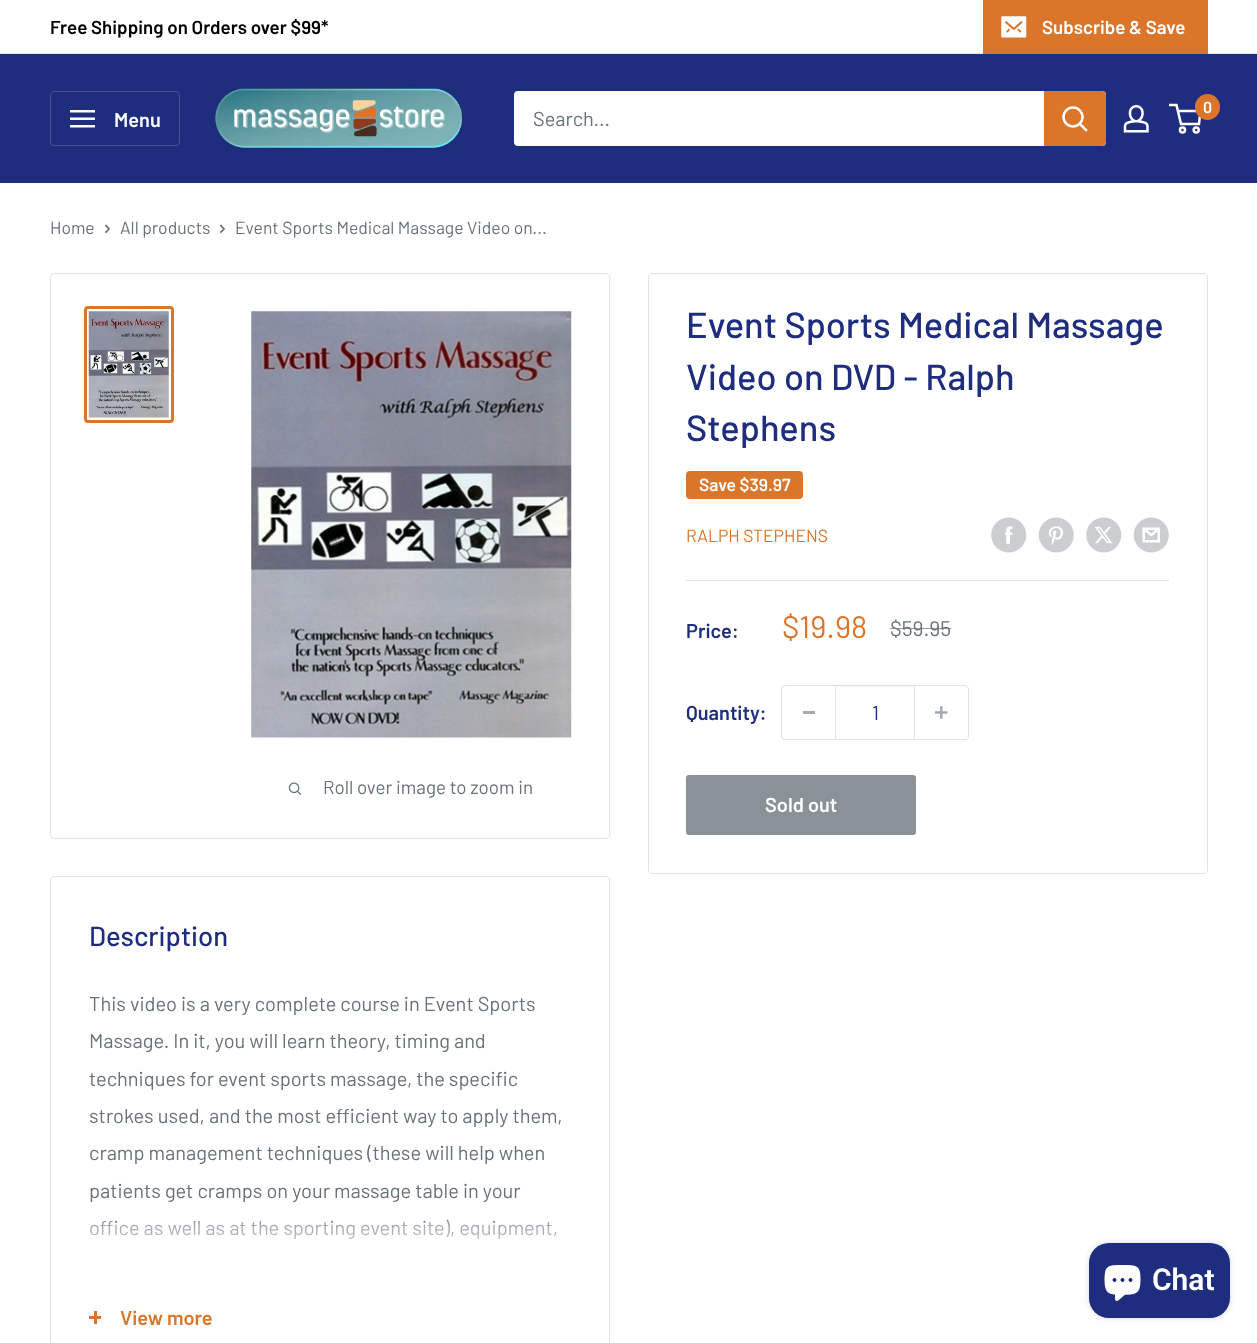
<svg xmlns="http://www.w3.org/2000/svg" width="1257" height="1343">
<style>
.a{font:600 18.75px Barlow;fill:#000}
.b{font:600 18.75px Barlow;fill:#fff}
.c{font:600 16px Barlow;fill:#fff}
.d{font:600 20px Barlow;fill:#fff}
.e{font:20px Barlow;fill:#677279}
.f{font:17.5px Barlow;fill:#677279}
.g{font:18.75px Barlow;fill:#677279}
.h{font:500 36.25px Barlow;fill:#1e2d7d}
.i{font:600 17.5px Barlow;fill:#fff}
.j{font:17.5px Barlow;fill:#db752a}
.k{font:600 20px Barlow;fill:#1e2d7d}
.l{font:31px Barlow;fill:#db752a}
.m{font:21px Barlow;fill:#677279}
.n{font:20px Barlow;fill:#1e2d7d}
.o{font:500 27.5px Barlow;fill:#1e2d7d}
.p{font:600 20px Barlow;fill:#db752a}
.q{font:600 30px Roboto;fill:#fff}
</style>
<defs>
<linearGradient id="g1" gradientUnits="userSpaceOnUse" x1="330" y1="1216" x2="330" y2="1279"><stop offset="0" stop-color="#fff" stop-opacity="0"/><stop offset="0.15" stop-color="#fff" stop-opacity="0.4"/><stop offset="1" stop-color="#fff"/></linearGradient>
</defs>
<rect width="100%" height="100%" fill="#fff"/>
<path fill="#e3e7fa" d="M0 53h1257v1H0z"/>
<path fill="#db752a" d="M983 52v2h225v-53v51z"/>
<path fill="#db752a" d="M983 0h225v52H983z"/>
<image href="1.png" x="1001" y="16" width="26" height="22"/>
<path fill="#1e2d7d" d="M0 54h1257v129H0z"/>
<image href="2.png" x="214" y="84" width="249" height="66"/>
<image href="3.png" x="1123" y="105" width="26" height="28"/>
<circle fill="none" stroke="#fff" stroke-width="2.5" cx="1182.5" cy="130" r="2.5"/>
<circle fill="none" stroke="#fff" stroke-width="2.5" cx="1196.2" cy="130" r="2.5"/>
<path fill="none" stroke="#fff" stroke-width="2.5" d="M1178 111h22.5l-1.5 13h-18l-4.5-19h-7.5"/>
<rect fill="#db752a" x="1195" y="94" width="25" height="26" rx="12.5"/>
<rect fill="none" stroke="#46549f" x="50.5" y="91.5" width="129" height="54" rx="3.5"/>
<image href="4.png" x="70" y="110" width="25" height="18"/>
<rect fill="#fff" x="514" y="91" width="592" height="55" rx="4"/>
<path fill="#db752a" d="M1044 91h58c2 0 4 2 4 4v47c0 2-2 4-4 4h-58z"/>
<path fill="none" stroke="#fff" stroke-width="2.5" stroke-linecap="square" d="M1086 130l-6-6"/>
<circle fill="none" stroke="#fff" stroke-width="2.5" cx="1073" cy="117" r="9.5"/>
<path fill="none" stroke="#677279" stroke-width="1.7" stroke-linecap="square" d="M106 225.5l3 3.5l-3 3"/>
<path fill="none" stroke="#677279" stroke-width="1.7" stroke-linecap="square" d="M221 225.5l3 3.5l-3 3"/>
<rect fill="none" stroke="#e1e3e4" x="50.5" y="273.5" width="559" height="565" rx="3.5"/>
<rect fill="none" stroke="#db752a" stroke-width="3" x="85.5" y="307.5" width="87" height="114" rx="2.5"/>
<image href="5.png" x="88" y="311" width="81" height="107"/>
<image href="6.png" x="251" y="311" width="321" height="427"/>
<image href="7.png" x="288" y="782" width="14" height="13"/>
<rect fill="none" stroke="#e1e3e4" x="648.5" y="273.5" width="559" height="600" rx="3.5"/>
<rect fill="#db752a" x="686" y="471" width="117" height="28" rx="4"/>
<image href="8.png" x="991" y="517" width="36" height="36"/>
<image href="9.png" x="1038" y="517" width="36" height="36"/>
<image href="10.png" x="1086" y="517" width="36" height="36"/>
<image href="11.png" x="1133" y="517" width="36" height="36"/>
<path fill="#e1e3e4" d="M686 580h483v1H686z"/>
<rect fill="none" stroke="#e1e3e4" x="781.5" y="685.5" width="187" height="54" rx="3.5"/>
<path fill="#a4aaaf" d="M803 711h12v3H803z"/>
<path fill="#f3f4f4" d="M836 686h78v1H836z"/>
<path fill="#e1e3e4" d="M914 686h1v53H914z"/>
<path fill="#e1e3e4" d="M835 686h1v53H835z"/>
<image href="12.png" x="935" y="706" width="13" height="13"/>
<rect fill="#8a9297" stroke="#8a9297" x="686.5" y="775.5" width="229" height="59" rx="2"/>
<rect fill="none" stroke="#e1e3e4" x="50.5" y="876.5" width="559" height="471" rx="3.5"/>
<path fill="#db752a" d="M94 1311h3v13H94z"/>
<path fill="#db752a" d="M89 1316h12v3H89z"/>
<rect fill="#00000026" filter="blur(3px)" x="1089" y="1243" width="141" height="75" rx="20"/>
<rect fill="#1e2d7d" x="1089" y="1243" width="141" height="75" rx="20"/>
<image href="13.png" x="1104" y="1265" width="37" height="36"/>
<text class="a" x="50" y="34">Free Shipping on Orders over $99*</text>
<text class="b" x="1042" y="34">Subscribe &amp; Save</text>
<text class="c" x="1203" y="113">0</text>
<text class="d" x="114" y="127">Menu</text>
<text class="e" x="533" y="126">Search...</text>
<text class="f" x="50" y="234">Home</text>
<text class="f" x="120" y="234">All products</text>
<text class="f" x="235" y="234">Event Sports Medical Massage Video on...</text>
<text class="g" x="323" y="794">Roll over image to zoom in</text>
<text class="h" x="686" y="338">Event Sports Medical Massage</text>
<text class="h" x="686" y="390">Video on DVD - Ralph</text>
<text class="h" x="686" y="441">Stephens</text>
<text class="i" x="699" y="491">Save $39.97</text>
<text class="j" x="686" y="542">RALPH STEPHENS</text>
<text class="k" x="686" y="638">Price:</text>
<text class="l" x="782" y="638">$19.98</text>
<text class="m" x="890" y="636">$59.95</text>
<path fill="#677279b3" d="M890 628h61v1H890z"/>
<text class="k" x="686" y="720">Quantity:</text>
<text class="n" x="872" y="720">1</text>
<text class="d" x="765" y="812">Sold out</text>
<text class="o" x="89" y="946">Description</text>
<text class="e" x="89" y="1011">This video is a very complete course in Event Sports</text>
<text class="e" x="89" y="1048">Massage. In it, you will learn theory, timing and</text>
<text class="e" x="89" y="1086">techniques for event sports massage, the specific</text>
<text class="e" x="89" y="1123">strokes used, and the most efficient way to apply them,</text>
<text class="e" x="89" y="1160">cramp management techniques (these will help when</text>
<text class="e" x="89" y="1198">patients get cramps on your massage table in your</text>
<text class="e" x="89" y="1235">office as well as at the sporting event site), equipment,</text>
<path fill="url(#g1)" d="M90 1219h466v20H90z"/>
<text class="p" x="120" y="1325">View more</text>
<text class="q" x="1152" y="1290">Chat</text>
</svg>
